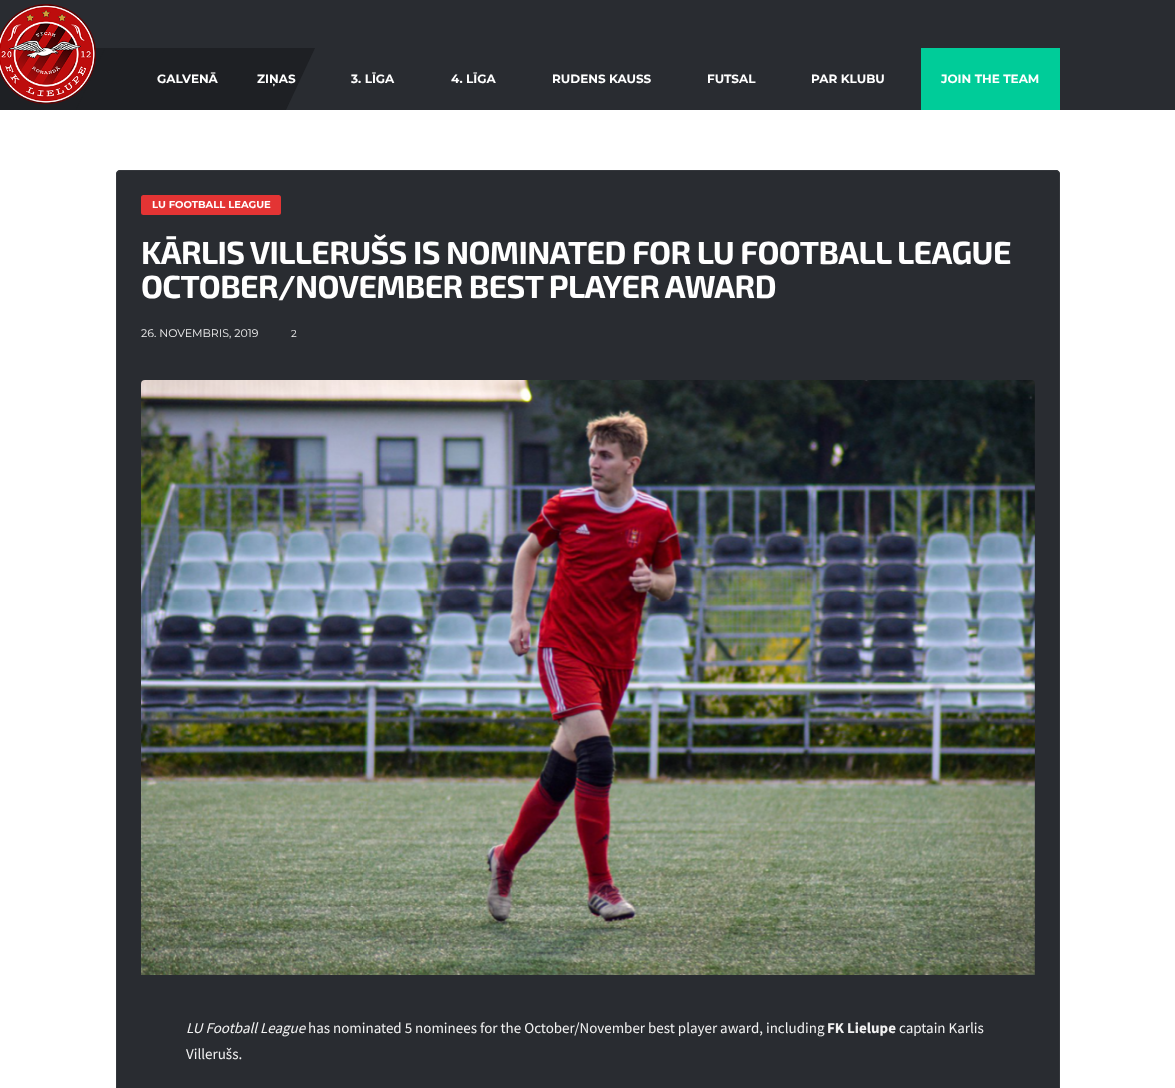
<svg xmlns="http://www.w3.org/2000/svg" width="1175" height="1088">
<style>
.a{font:bold 12px Montserrat;fill:#fff}
.b{font:bold 10px Montserrat;fill:#fff}
.c{font:bold 32px 'Exo 2';letter-spacing:-0.65px;fill:#fff}
.d{font:11px Montserrat;fill:#f2f2f2}
.e{font:10px Montserrat;fill:#f2f2f2}
.f{font:italic 15px Source Sans Pro;fill:#f2f2f2}
.g{font:15px Source Sans Pro;fill:#f2f2f2}
.h{font:bold 15px Source Sans Pro;fill:#f2f2f2}
</style>
<rect width="100%" height="100%" fill="#fff"/>
<path fill="#1e2024" d="M0 48h105v62H0z"/>
<path fill="#292c31" d="M0 0h1175v48H0z"/>
<path fill="#292c31" d="M286 48h635v62H286z"/>
<path fill="#1e2024" d="M105 48h210l-29 62h-210z"/>
<image href="1.png" x="0" y="4" width="96" height="100"/>
<path fill="#0c9" d="M921 48h139v62H921z"/>
<path fill="#292c31" d="M1060 48h115v62H1060z"/>
<path fill="#292c31" d="M120 170h936c2 0 4 2 4 4v914h-944v-914c0-2 2-4 4-4z"/>
<rect fill="none" stroke="#34373c" x="116.5" y="170.5" width="943" height="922" rx="3.5"/>
<rect fill="#e33434" x="141" y="195" width="140" height="20" rx="2.5"/>
<image href="2.png" x="141" y="380" width="894" height="595"/>
<text class="a" x="157" y="83">GALVENĀ</text>
<text class="a" x="257" y="83">ZIŅAS</text>
<text class="a" x="351" y="83">3. LĪGA</text>
<text class="a" x="451" y="83">4. LĪGA</text>
<text class="a" x="552" y="83">RUDENS KAUSS</text>
<text class="a" x="707" y="83">FUTSAL</text>
<text class="a" x="811" y="83">PAR KLUBU</text>
<text class="a" x="941" y="83">JOIN THE TEAM</text>
<text class="b" x="152" y="208">LU FOOTBALL LEAGUE</text>
<text class="c" x="141" y="264">KĀRLIS VILLERUŠS IS NOMINATED FOR LU FOOTBALL LEAGUE</text>
<text class="c" x="141" y="298">OCTOBER/NOVEMBER BEST PLAYER AWARD</text>
<text class="d" x="141" y="337">26. NOVEMBRIS, 2019</text>
<text class="e" x="291" y="337">2</text>
<text class="f" x="186" y="1033">LU Football League</text>
<text class="g" x="308" y="1033">has nominated 5 nominees for the October/November best player award, including</text>
<text class="h" x="827" y="1033">FK Lielupe</text>
<text class="g" x="899" y="1033">captain Karlis</text>
<text class="g" x="186" y="1059">Villerušs.</text>
</svg>
